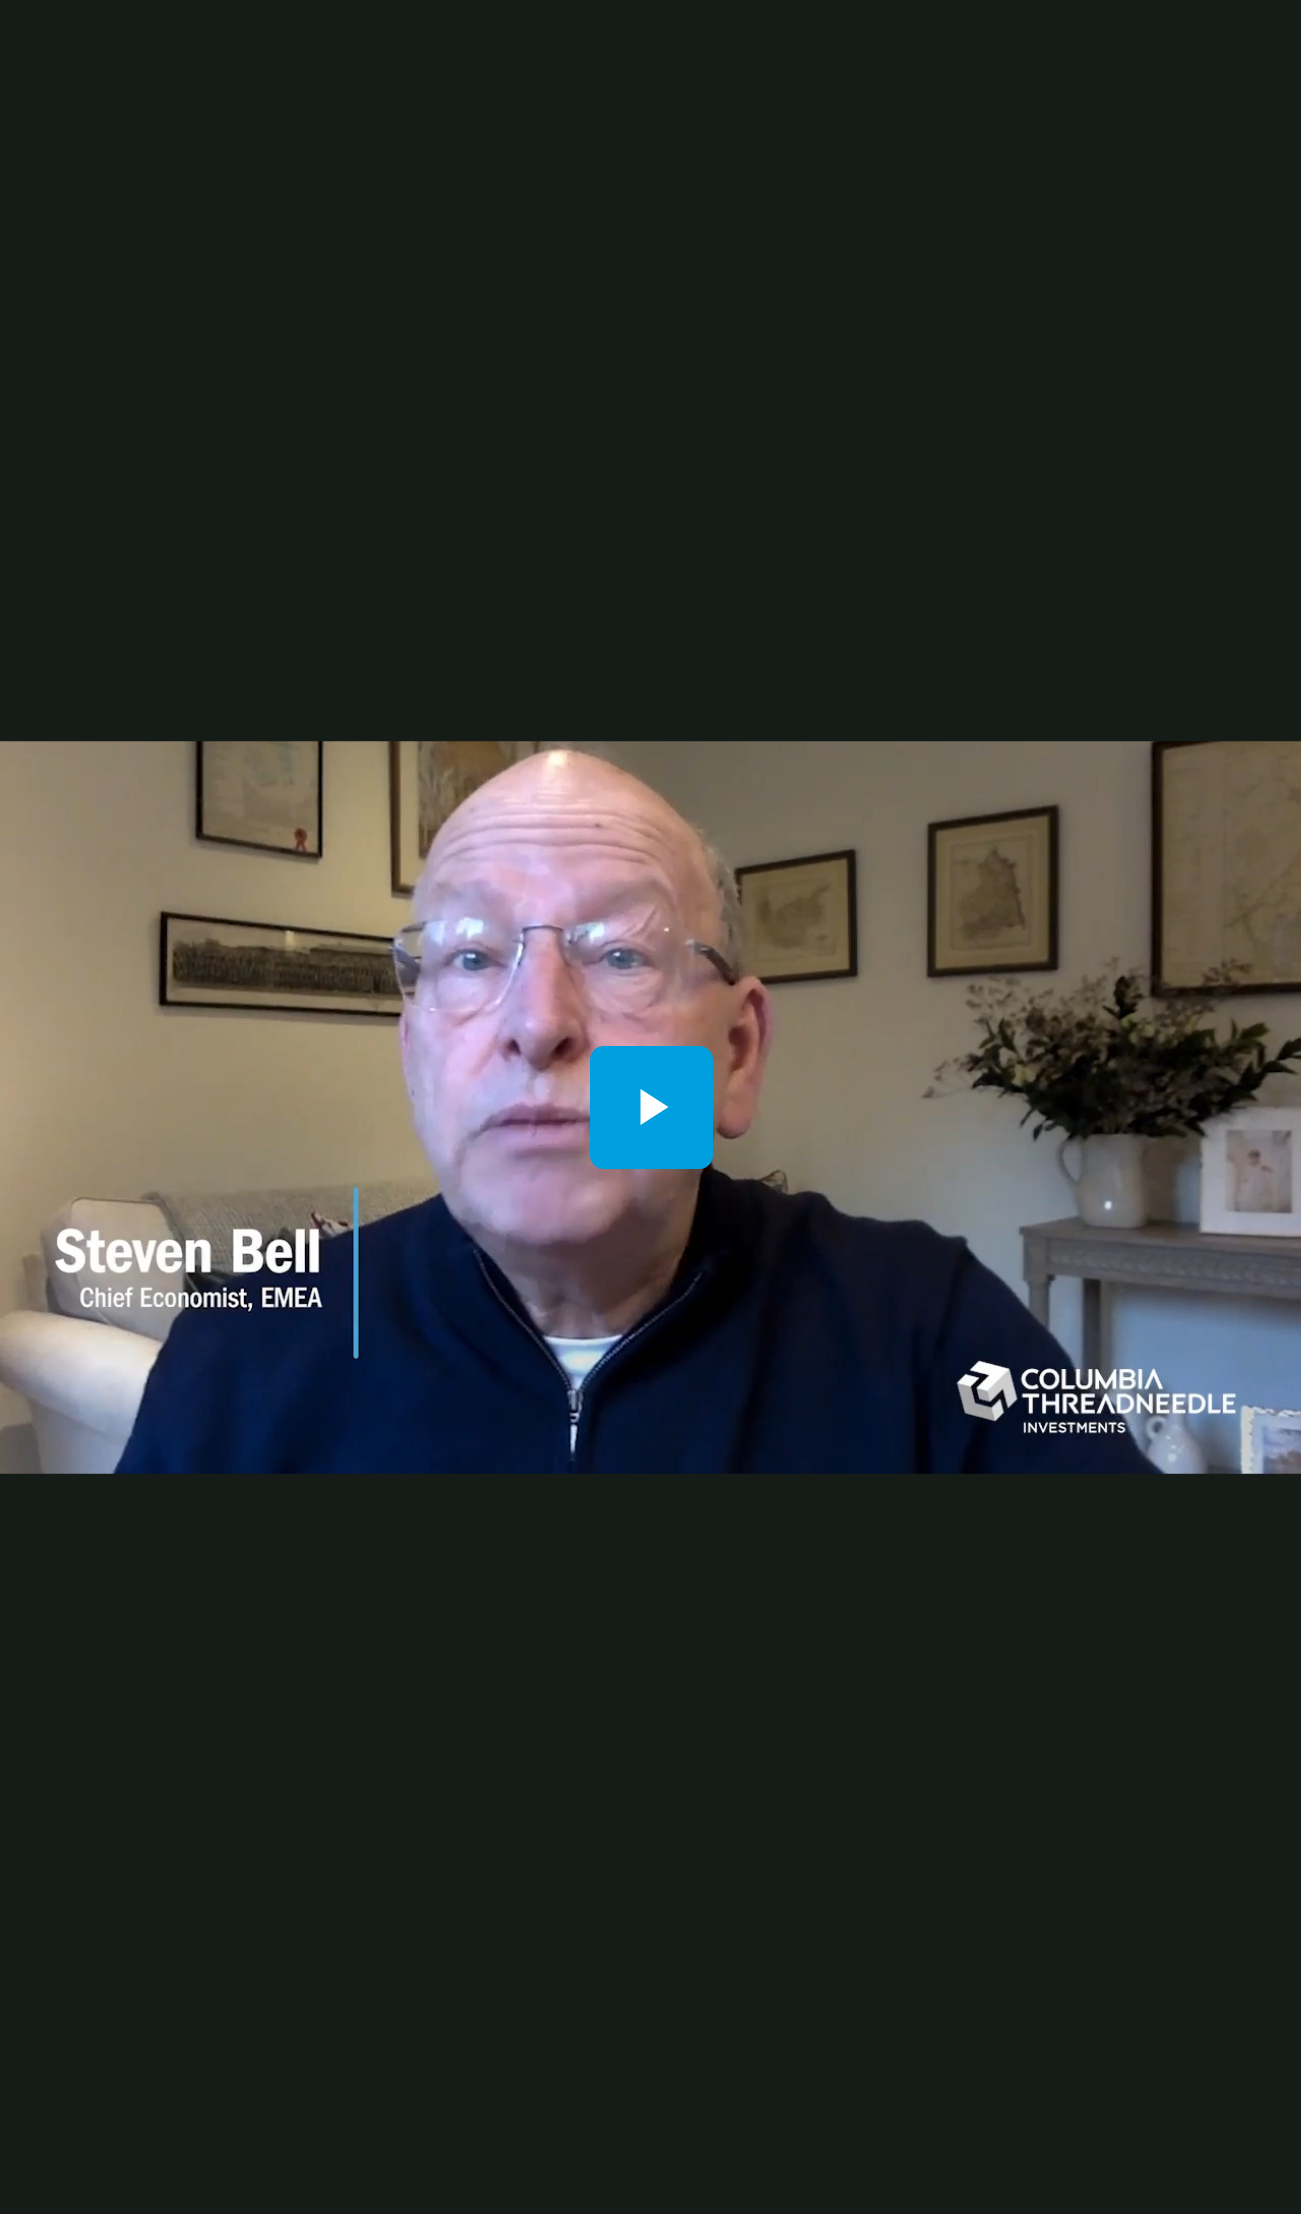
<svg xmlns="http://www.w3.org/2000/svg" width="1301" height="2214">
<rect width="100%" height="100%" fill="#151b17"/>
<image href="1.png" x="0" y="741" width="1301" height="733"/>
<rect fill="#009fdf" x="590" y="1046" width="123" height="123" rx="14"/>
<path fill="#fff" d="M640.5 1089v36l28-18z"/>
</svg>
